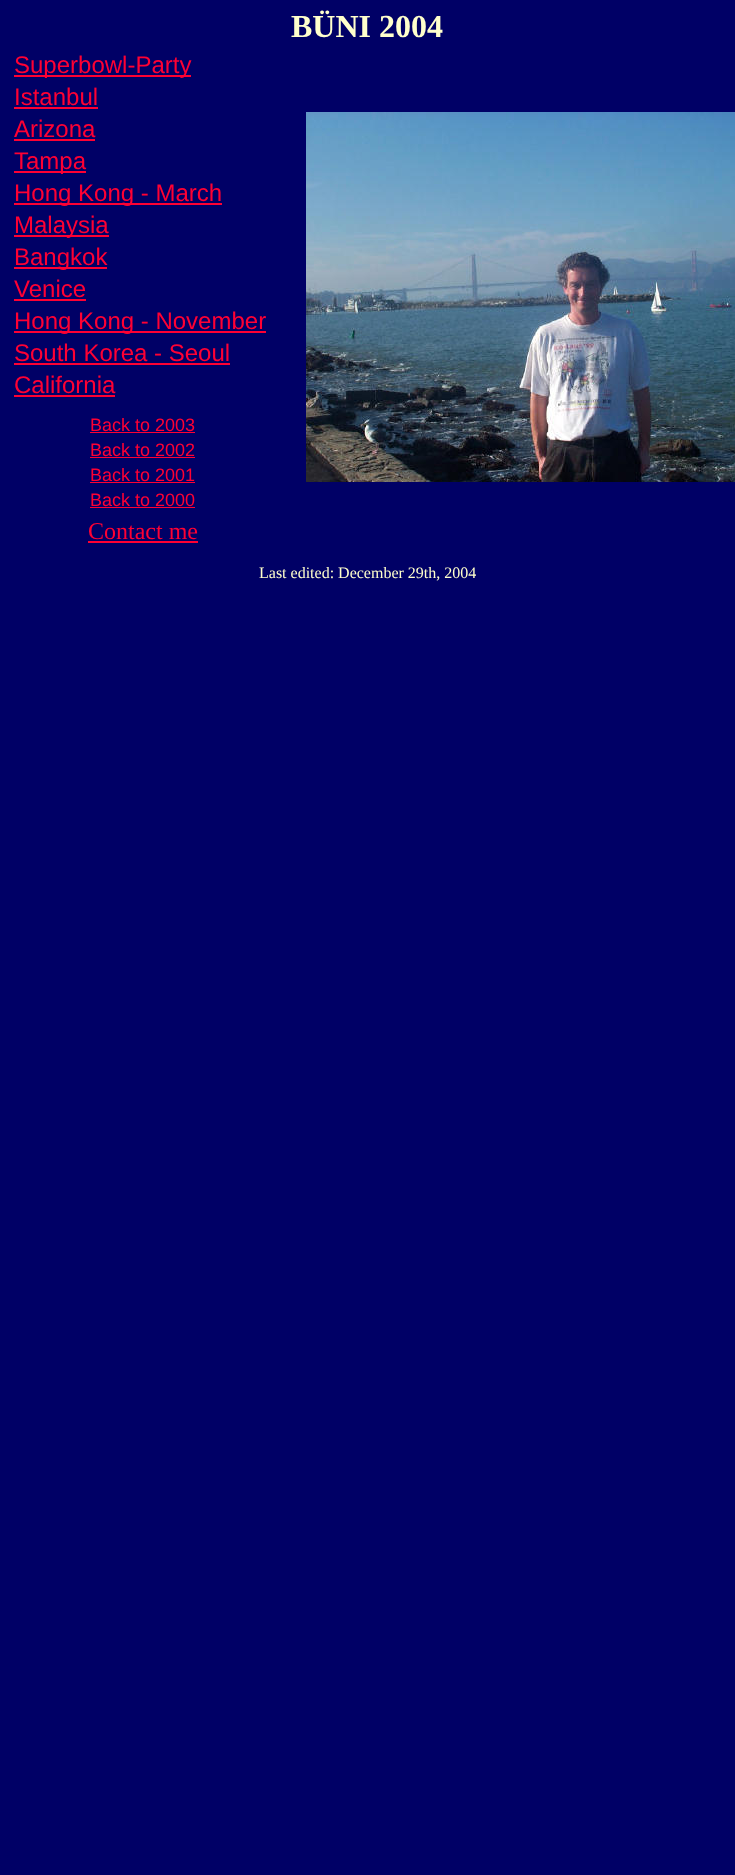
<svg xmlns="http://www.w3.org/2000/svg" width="735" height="1875">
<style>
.a{font:bold 32px Liberation Serif;fill:#ffc}
.b{font:24px Liberation Sans;fill:#f03}
.c{font:18px Liberation Sans;fill:#f03}
.d{font:24px Liberation Serif;fill:#f03}
.e{font:16px Liberation Serif;fill:#ffc}
</style>
<rect width="100%" height="100%" fill="#006"/>
<path fill="#f03" d="M14 75h177v2H14z"/>
<path fill="#f03" d="M14 107h84v2H14z"/>
<path fill="#f03" d="M14 139h81v2H14z"/>
<path fill="#f03" d="M14 171h72v2H14z"/>
<path fill="#f03" d="M14 203h208v2H14z"/>
<path fill="#f03" d="M14 235h95v2H14z"/>
<path fill="#f03" d="M14 267h93v2H14z"/>
<path fill="#f03" d="M14 299h72v2H14z"/>
<path fill="#f03" d="M14 331h252v2H14z"/>
<path fill="#f03" d="M14 363h216v2H14z"/>
<path fill="#f03" d="M14 395h101v2H14z"/>
<path fill="#f03" d="M90 432h105v1H90z"/>
<path fill="#f03" d="M90 457h105v1H90z"/>
<path fill="#f03" d="M90 482h105v1H90z"/>
<path fill="#f03" d="M90 507h105v1H90z"/>
<path fill="#f03" d="M88 541h110v2H88z"/>
<image href="1.png" x="306" y="112" width="429" height="370"/>
<text class="a" x="291" y="37">BÜNI 2004</text>
<text class="b" x="14" y="73">Superbowl-Party</text>
<text class="b" x="14" y="105">Istanbul</text>
<text class="b" x="14" y="137">Arizona</text>
<text class="b" x="14" y="169">Tampa</text>
<text class="b" x="14" y="201">Hong Kong - March</text>
<text class="b" x="14" y="233">Malaysia</text>
<text class="b" x="14" y="265">Bangkok</text>
<text class="b" x="14" y="297">Venice</text>
<text class="b" x="14" y="329">Hong Kong - November</text>
<text class="b" x="14" y="361">South Korea - Seoul</text>
<text class="b" x="14" y="393">California</text>
<text class="c" x="90" y="431">Back to 2003</text>
<text class="c" x="90" y="456">Back to 2002</text>
<text class="c" x="90" y="481">Back to 2001</text>
<text class="c" x="90" y="506">Back to 2000</text>
<text class="d" x="88" y="539">Contact me</text>
<text class="e" x="259" y="578">Last edited: December 29th, 2004</text>
</svg>
